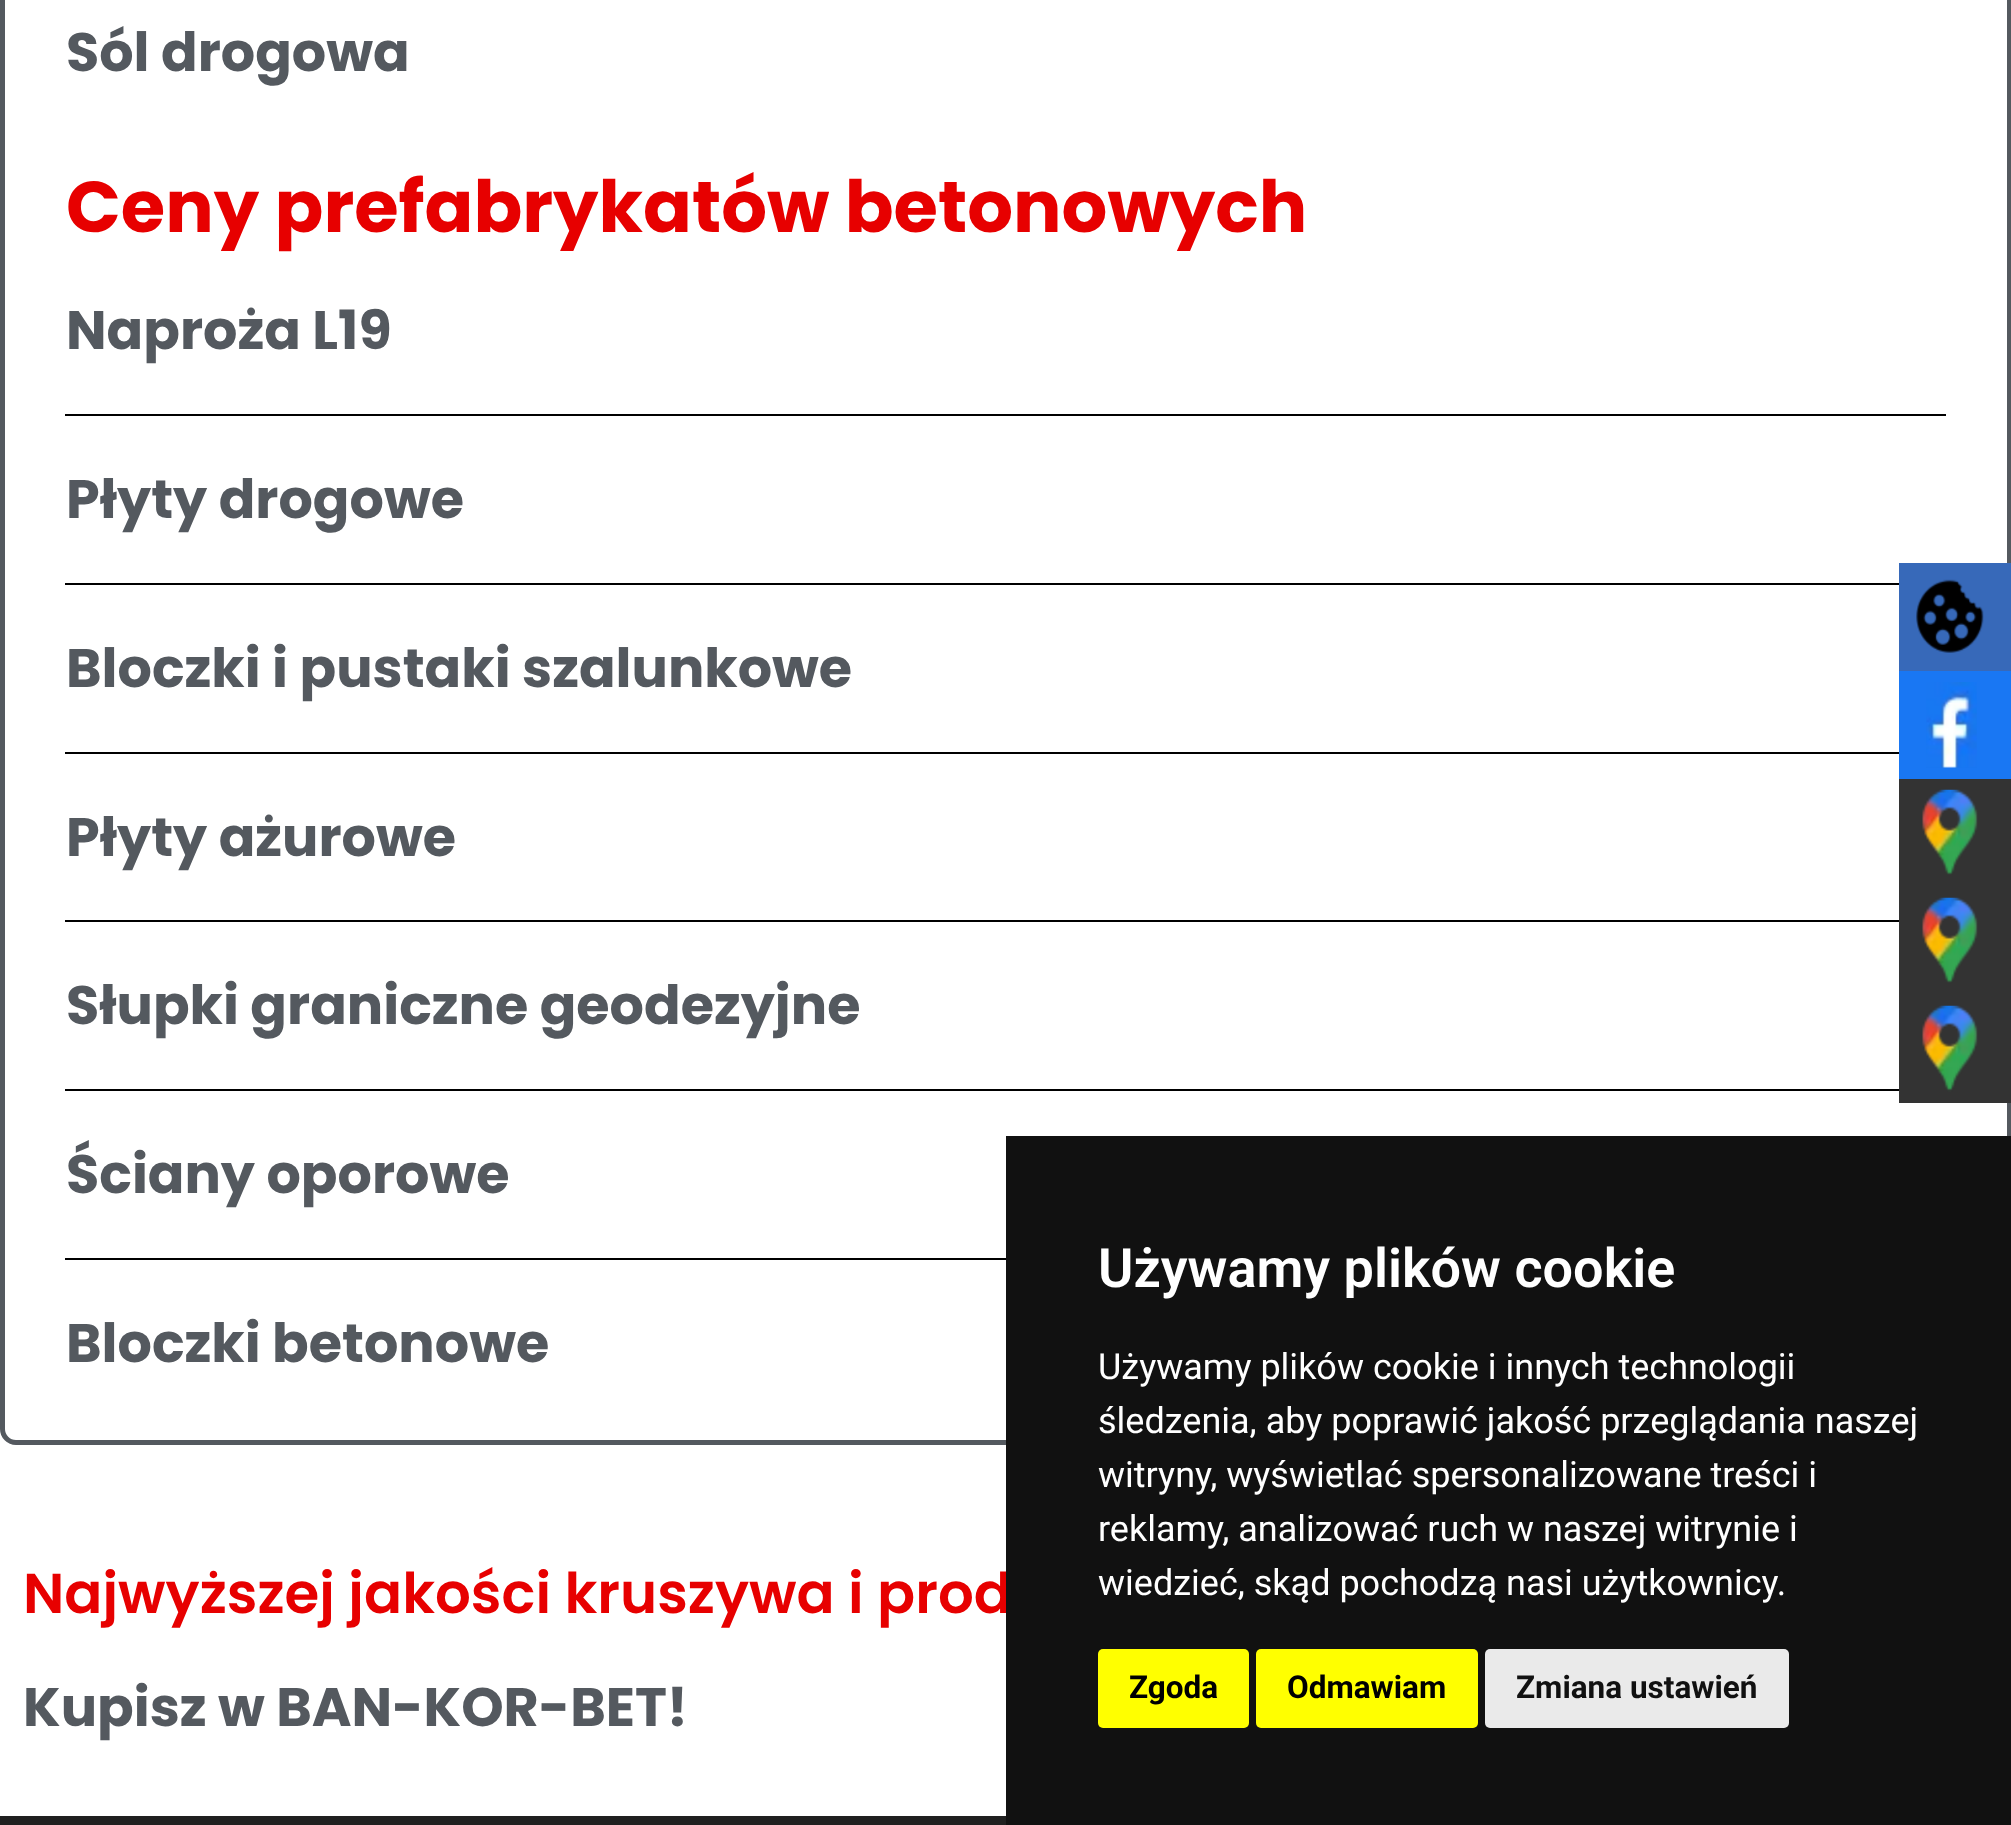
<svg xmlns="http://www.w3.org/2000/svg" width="2011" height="1825">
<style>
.a{font:bold 54px Poppins;fill:#54595f}
.b{font:bold 72px Poppins;fill:#e70000}
.c{font:600 56.25px Poppins;fill:#e70000}
.d{font:600 54px Roboto;fill:#fff}
.e{font:36px Roboto;fill:#fff}
.f{font:bold 31.5px Roboto;fill:#000}
.g{font:bold 31.5px Roboto;fill:#111}
</style>
<rect width="100%" height="100%" fill="#fff"/>
<rect fill="none" stroke="#54595f" stroke-width="5" x="2.5" y="-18.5" width="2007" height="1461" rx="13.5"/>
<path fill="#000" d="M65 414h1881v2H65z"/>
<path fill="#000" d="M65 583h1834v2H65z"/>
<path fill="#000" d="M65 752h1834v2H65z"/>
<path fill="#000" d="M65 920h1834v2H65z"/>
<path fill="#000" d="M65 1089h1834v2H65z"/>
<path fill="#000" d="M65 1258h941v2H65z"/>
<path fill="#202020" d="M0 1816h1006v9H0z"/>
<path fill="#3769b9" d="M1899 563h112v108H1899z"/>
<image href="1.png" x="1916" y="579" width="68" height="74"/>
<path fill="#1977f3" d="M1899 671h112v108H1899z"/>
<image href="2.png" x="1926" y="682" width="51" height="86"/>
<path fill="#333" d="M1899 779h112v324H1899z"/>
<image href="3.png" x="1922" y="789" width="56" height="86"/>
<image href="3.png" x="1922" y="897" width="56" height="86"/>
<image href="4.png" x="1922" y="1005" width="56" height="87"/>
<text class="a" x="66" y="71">Sól drogowa</text>
<text class="b" x="66" y="232">Ceny prefabrykatów betonowych</text>
<text class="a" x="66" y="349">Naproża L19</text>
<text class="a" x="66" y="518">Płyty drogowe</text>
<text class="a" x="66" y="687">Bloczki i pustaki szalunkowe</text>
<text class="a" x="66" y="856">Płyty ażurowe</text>
<text class="a" x="66" y="1024">Słupki graniczne geodezyjne</text>
<text class="a" x="66" y="1193">Ściany oporowe</text>
<text class="a" x="66" y="1362">Bloczki betonowe</text>
<text class="c" x="23" y="1613">Najwyższej jakości kruszywa i prod</text>
<text class="a" x="23" y="1726">Kupisz w BAN-KOR-BET!</text>
<path fill="#111" d="M1006 1136h1005v689H1006z"/>
<text class="d" x="1098" y="1287">Używamy plików cookie</text>
<text class="e" x="1098" y="1379">Używamy plików cookie i innych technologii</text>
<text class="e" x="1098" y="1433">śledzenia, aby poprawić jakość przeglądania naszej</text>
<text class="e" x="1098" y="1487">witryny, wyświetlać spersonalizowane treści i</text>
<text class="e" x="1098" y="1541">reklamy, analizować ruch w naszej witrynie i</text>
<text class="e" x="1098" y="1595">wiedzieć, skąd pochodzą nasi użytkownicy.</text>
<rect fill="#ff0" x="1098" y="1649" width="151" height="79" rx="5"/>
<text class="f" x="1129" y="1698">Zgoda</text>
<rect fill="#ff0" x="1256" y="1649" width="222" height="79" rx="5"/>
<text class="f" x="1287" y="1698">Odmawiam</text>
<rect fill="#eaeaea" x="1485" y="1649" width="304" height="79" rx="5"/>
<text class="g" x="1516" y="1698">Zmiana ustawień</text>
</svg>
